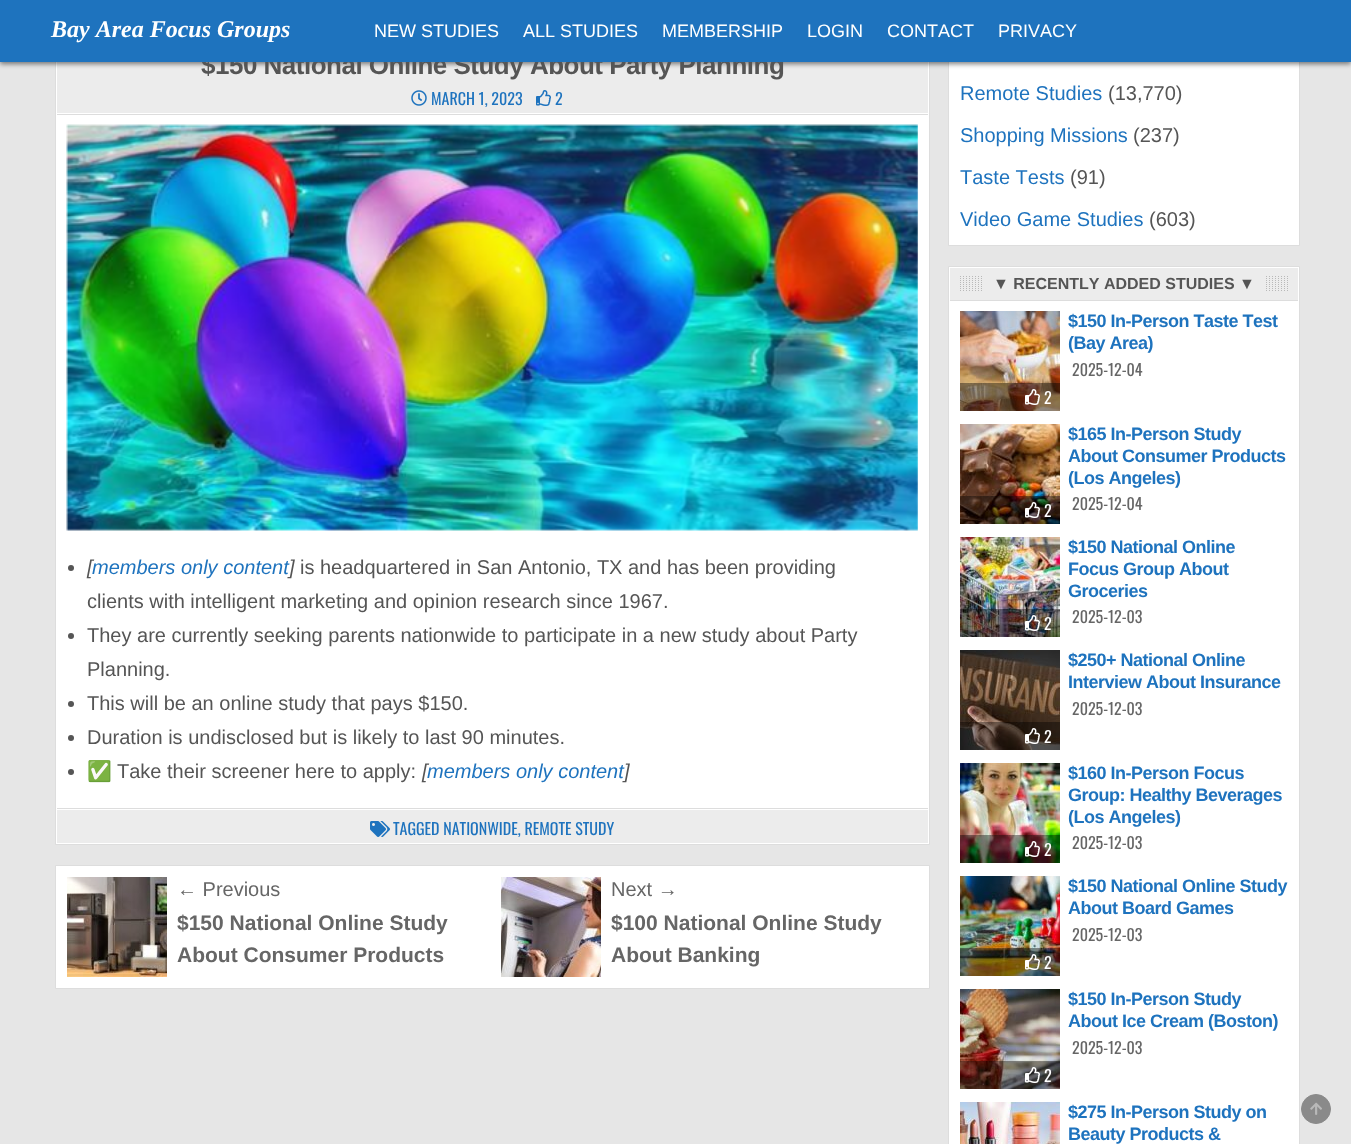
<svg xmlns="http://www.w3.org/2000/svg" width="1351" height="1144">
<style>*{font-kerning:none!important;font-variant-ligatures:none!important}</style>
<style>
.a{font:bold 26px Liberation Sans;letter-spacing:-0.5px;fill:#555}
.b{font:18px Liberation Sans;fill:#fff}
.c{font:italic bold 24px Liberation Serif;fill:#fff}
.d{font:16px Oswald;fill:#1e73be}
.e{font:italic 20px Liberation Sans;fill:#555}
.f{font:italic 20px Liberation Sans;fill:#1e73be}
.g{font:20px Liberation Sans;fill:#555}
.h{font:20px Noto Color Emoji;fill:#555}
.i{font:20px Liberation Sans;fill:#666}
.j{font:bold 21px Liberation Sans;fill:#666}
.k{font:20px Liberation Sans;fill:#1e73be}
.l{font:bold 16px Liberation Sans;fill:#555}
.m{font:bold 18px Liberation Sans;letter-spacing:-0.5px;fill:#1e73be}
.n{font:16px Oswald;fill:#666}
.o{font:16px Oswald;fill:#fff}
</style>
<rect width="100%" height="100%" fill="#e6e6e6"/>
<path fill="#fff" d="M56 62h873v782H56z"/>
<path fill="none" stroke="#ddd" d="M55.5 20.5h874v824H55.5z"/>
<path fill="#ececec" d="M57 62h871v51H57z"/>
<path fill="#fff" d="M949 62h350v183H949z"/>
<path fill="none" stroke="#ddd" d="M948.5 -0.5h351v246H948.5z"/>
<path fill="#00000080" filter="blur(2.5px)" d="M0 2h1351v62H0z"/>
<path fill="#ddd" d="M57 114h871v1H57z"/>
<image href="1.png" x="411" y="90" width="16" height="16"/>
<image href="2.png" x="536" y="90" width="15" height="16"/>
<image href="3.png" x="66" y="124" width="852" height="407"/>
<circle fill="#555" cx="71" cy="568" r="3"/>
<circle fill="#555" cx="71" cy="636" r="3"/>
<circle fill="#555" cx="71" cy="704" r="3"/>
<circle fill="#555" cx="71" cy="738" r="3"/>
<circle fill="#555" cx="71" cy="772" r="3"/>
<path fill="#ececec" d="M57 810h871v33H57z"/>
<path fill="#ddd" d="M57 808h871v1H57z"/>
<image href="4.png" x="370" y="821" width="20" height="16"/>
<path fill="#fff" stroke="#ddd" d="M55.5 865.5h874v123H55.5z"/>
<image href="5.png" x="67" y="877" width="100" height="100"/>
<image href="6.png" x="501" y="877" width="100" height="100"/>
<path fill="#fff" stroke="#ddd" d="M948.5 266.5h351v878H948.5z"/>
<path fill="#ececec" d="M950 268h348v32H950z"/>
<path fill="#ddd" d="M950 300h348v1H950z"/>
<image href="7.png" x="960" y="276" width="328" height="15"/>
<path fill="#ececec" d="M984 276h280v15H984z"/>
<image href="8.png" x="960" y="311" width="100" height="100"/>
<path fill="#00000066" d="M960 383h100v28H960z"/>
<image href="9.png" x="1025" y="389" width="15" height="16"/>
<image href="10.png" x="960" y="424" width="100" height="100"/>
<path fill="#00000066" d="M960 496h100v28H960z"/>
<image href="11.png" x="1025" y="502" width="15" height="16"/>
<image href="12.png" x="960" y="537" width="100" height="100"/>
<path fill="#00000066" d="M960 609h100v28H960z"/>
<image href="13.png" x="1025" y="615" width="15" height="16"/>
<image href="14.png" x="960" y="650" width="100" height="100"/>
<path fill="#00000066" d="M960 722h100v28H960z"/>
<image href="15.png" x="1025" y="728" width="15" height="16"/>
<image href="16.png" x="960" y="763" width="100" height="100"/>
<path fill="#00000066" d="M960 835h100v28H960z"/>
<image href="17.png" x="1025" y="841" width="15" height="16"/>
<image href="18.png" x="960" y="876" width="100" height="100"/>
<path fill="#00000066" d="M960 948h100v28H960z"/>
<image href="19.png" x="1025" y="954" width="15" height="16"/>
<image href="20.png" x="960" y="989" width="100" height="100"/>
<path fill="#00000066" d="M960 1061h100v28H960z"/>
<image href="21.png" x="1025" y="1067" width="15" height="16"/>
<image href="22.png" x="960" y="1102" width="100" height="42"/>
<circle fill="#8a8a8a" stroke="#8a8a8a" cx="1316" cy="1109" r="14.5"/>
<image href="23.png" x="1310" y="1102" width="12" height="13"/>
<text class="a" x="201" y="74">$150 National Online Study About Party Planning</text>
<path fill="#1e73be" d="M0 0h1351v62H0z"/>
<text class="b" x="998" y="37">PRIVACY</text>
<text class="b" x="887" y="37">CONTACT</text>
<text class="b" x="807" y="37">LOGIN</text>
<text class="b" x="662" y="37">MEMBERSHIP</text>
<text class="b" x="523" y="37">ALL STUDIES</text>
<text class="b" x="374" y="37">NEW STUDIES</text>
<text class="c" x="51" y="37">Bay Area Focus Groups</text>
<text class="d" x="431" y="105">MARCH 1, 2023</text>
<text class="d" x="555" y="105">2</text>
<text class="e" x="87" y="574">[</text>
<text class="f" x="92" y="574">members only content</text>
<text class="e" x="289" y="574">]</text>
<text class="g" x="300" y="574">is headquartered in San Antonio, TX and has been providing</text>
<text class="g" x="87" y="608">clients with intelligent marketing and opinion research since 1967.</text>
<text class="g" x="87" y="642">They are currently seeking parents nationwide to participate in a new study about Party</text>
<text class="g" x="87" y="676">Planning.</text>
<text class="g" x="87" y="710">This will be an online study that pays $150.</text>
<text class="g" x="87" y="744">Duration is undisclosed but is likely to last 90 minutes.</text>
<text class="h" x="87" y="778">✅</text>
<text class="g" x="117" y="778">Take their screener here to apply:</text>
<text class="e" x="422" y="778">[</text>
<text class="f" x="427" y="778">members only content</text>
<text class="e" x="624" y="778">]</text>
<text class="d" x="393" y="835">TAGGED NATIONWIDE, REMOTE STUDY</text>
<text class="i" x="177" y="896">← Previous</text>
<text class="j" x="177" y="930">$150 National Online Study</text>
<text class="j" x="177" y="962">About Consumer Products</text>
<text class="i" x="611" y="896">Next →</text>
<text class="j" x="611" y="930">$100 National Online Study</text>
<text class="j" x="611" y="962">About Banking</text>
<text class="k" x="960" y="100">Remote Studies</text>
<text class="g" x="1108" y="100">(13,770)</text>
<text class="k" x="960" y="142">Shopping Missions</text>
<text class="g" x="1133" y="142">(237)</text>
<text class="k" x="960" y="184">Taste Tests</text>
<text class="g" x="1070" y="184">(91)</text>
<text class="k" x="960" y="226">Video Game Studies</text>
<text class="g" x="1149" y="226">(603)</text>
<text class="l" x="993" y="289">▼ RECENTLY ADDED STUDIES ▼</text>
<text class="m" x="1068" y="327">$150 In-Person Taste Test</text>
<text class="m" x="1068" y="349">(Bay Area)</text>
<text class="n" x="1072" y="376">2025-12-04</text>
<text class="o" x="1044" y="404">2</text>
<text class="m" x="1068" y="440">$165 In-Person Study</text>
<text class="m" x="1068" y="462">About Consumer Products</text>
<text class="m" x="1068" y="484">(Los Angeles)</text>
<text class="o" x="1044" y="517">2</text>
<text class="n" x="1072" y="510">2025-12-04</text>
<text class="m" x="1068" y="553">$150 National Online</text>
<text class="m" x="1068" y="575">Focus Group About</text>
<text class="m" x="1068" y="597">Groceries</text>
<text class="o" x="1044" y="630">2</text>
<text class="n" x="1072" y="623">2025-12-03</text>
<text class="m" x="1068" y="666">$250+ National Online</text>
<text class="m" x="1068" y="688">Interview About Insurance</text>
<text class="n" x="1072" y="715">2025-12-03</text>
<text class="o" x="1044" y="743">2</text>
<text class="m" x="1068" y="779">$160 In-Person Focus</text>
<text class="m" x="1068" y="801">Group: Healthy Beverages</text>
<text class="m" x="1068" y="823">(Los Angeles)</text>
<text class="o" x="1044" y="856">2</text>
<text class="n" x="1072" y="849">2025-12-03</text>
<text class="m" x="1068" y="892">$150 National Online Study</text>
<text class="m" x="1068" y="914">About Board Games</text>
<text class="n" x="1072" y="941">2025-12-03</text>
<text class="o" x="1044" y="969">2</text>
<text class="m" x="1068" y="1005">$150 In-Person Study</text>
<text class="m" x="1068" y="1027">About Ice Cream (Boston)</text>
<text class="n" x="1072" y="1054">2025-12-03</text>
<text class="o" x="1044" y="1082">2</text>
<text class="m" x="1068" y="1118">$275 In-Person Study on</text>
<text class="m" x="1068" y="1140">Beauty Products &amp;</text>
</svg>
